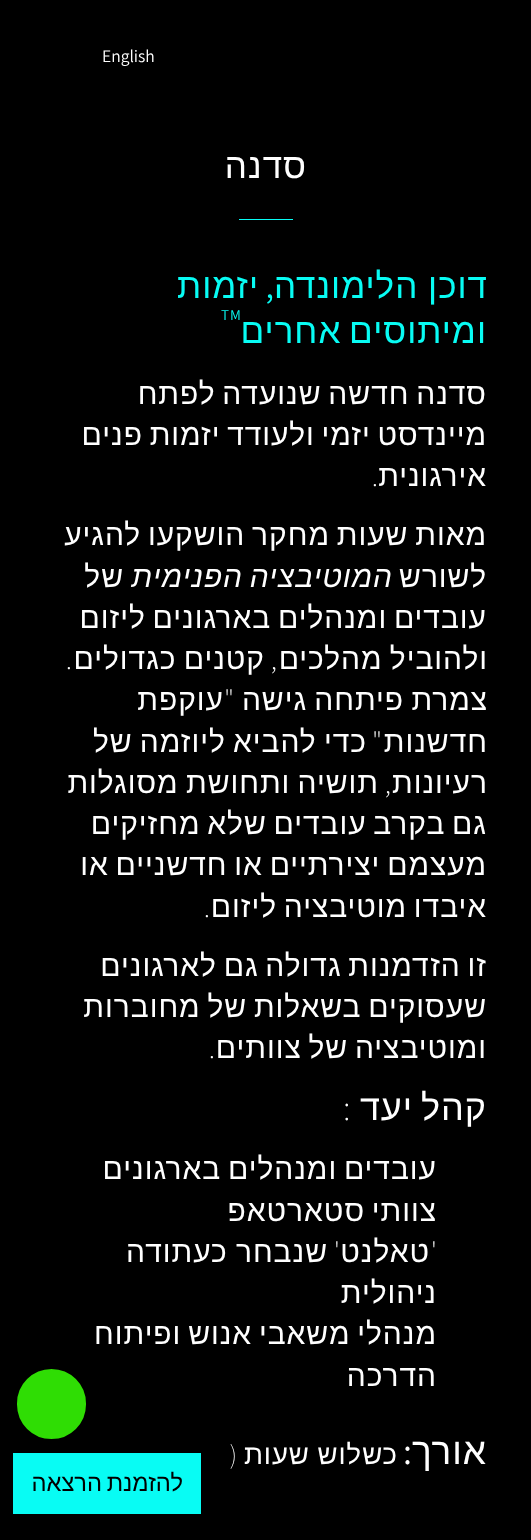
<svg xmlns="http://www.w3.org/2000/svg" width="531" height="1540">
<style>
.a{font:17.5px Assistant;fill:#fff}
.b{font:35px Liberation Sans;letter-spacing:1px;direction:rtl;fill:#fff}
.c{font:35px Liberation Sans;letter-spacing:1px;direction:rtl;fill:#08fcf4}
.d{font:35px Assistant;letter-spacing:1px;direction:rtl;fill:#08fcf4}
.e{font:15px Assistant;letter-spacing:1px;fill:#08fcf4}
.f{font:30px Liberation Sans;letter-spacing:0.95px;direction:rtl;fill:#fff}
.g{font:200 30px Assistant;letter-spacing:0.95px;direction:rtl;fill:#fff}
.h{font:italic 30px Liberation Sans;letter-spacing:0.95px;direction:rtl;fill:#fff}
.i{font:36px Liberation Sans;letter-spacing:0.95px;direction:rtl;fill:#fff}
.j{font:200 36px Assistant;letter-spacing:0.95px;fill:#fff}
.k{font:37px Liberation Sans;letter-spacing:0.95px;direction:rtl;fill:#fff}
.l{font:37px Assistant;letter-spacing:0.95px;direction:rtl;fill:#fff}
.m{font:27.5px Liberation Sans;letter-spacing:0.95px;direction:rtl;fill:#fff}
.n{font:200 27.5px Assistant;letter-spacing:0.95px;direction:rtl;fill:#fff}
.o{font:23.75px Liberation Sans;direction:rtl;fill:#000}
</style>
<rect width="100%" height="100%" fill="#000"/>
<path fill="#08fcf4" d="M239 219h54v1H239z"/>
<rect fill="#2fdd04" stroke="#000" stroke-width="4" x="15" y="1367" width="73" height="74" rx="36.5"/>
<path fill="#08fcf4" d="M13 1453h188v61H13z"/>
<text class="a" x="102" y="62">English</text>
<text class="b" x="307" y="178">סדנה</text>
<text class="c" x="488" y="298" word-spacing="-1">דוכן הלימונדה</text>
<text class="c" x="259" y="298">יזמות</text>
<text class="d" x="275" y="298">,</text>
<text class="e" x="221" y="320">TM</text>
<text class="c" x="487" y="343" word-spacing="-3">ומיתוסים אחרים</text>
<text class="f" x="487" y="404" word-spacing="-2.5">סדנה חדשה שנועדה לפתח</text>
<text class="f" x="487" y="445" word-spacing="-2.5">מיינדסט יזמי ולעודד יזמות פנים</text>
<text class="f" x="487" y="486">אירגונית</text>
<text class="g" x="379" y="486">.</text>
<text class="f" x="487" y="545" word-spacing="-2.5">מאות שעות מחקר הושקעו להגיע</text>
<text class="f" x="487" y="587">לשורש</text>
<text class="h" x="393" y="587" word-spacing="-2.5">המוטיבציה הפנימית</text>
<text class="f" x="124" y="587">של</text>
<text class="f" x="487" y="628" word-spacing="-2.5">עובדים ומנהלים בארגונים ליזום</text>
<text class="f" x="488" y="669" word-spacing="-2">ולהוביל מהלכים</text>
<text class="g" x="278" y="669">,</text>
<text class="f" x="265" y="669" word-spacing="-2">קטנים כגדולים</text>
<text class="g" x="73" y="669">.</text>
<text class="f" x="488" y="710" word-spacing="-2">צמרת פיתחה גישה</text>
<text class="g" x="235" y="710">"</text>
<text class="f" x="224" y="710">עוקפת</text>
<text class="f" x="488" y="752">חדשנות</text>
<text class="g" x="383" y="752">"</text>
<text class="f" x="367" y="752" word-spacing="-2">כדי להביא ליוזמה של</text>
<text class="f" x="488" y="793">רעיונות</text>
<text class="g" x="392" y="793">,</text>
<text class="f" x="379" y="793" word-spacing="-2">תושיה ותחושת מסוגלות</text>
<text class="f" x="487" y="834" word-spacing="-2.5">גם בקרב עובדים שלא מחזיקים</text>
<text class="f" x="487" y="875" word-spacing="-2.5">מעצמם יצירתיים או חדשניים או</text>
<text class="f" x="487" y="917" word-spacing="-2.5">איבדו מוטיבציה ליזום</text>
<text class="g" x="211" y="917">.</text>
<text class="f" x="487" y="976" word-spacing="-2.5">זו הזדמנות גדולה גם לארגונים</text>
<text class="f" x="487" y="1017" word-spacing="-2.5">שעסוקים בשאלות של מחוברות</text>
<text class="f" x="487" y="1058" word-spacing="-2.5">ומוטיבציה של צוותים</text>
<text class="g" x="216" y="1058">.</text>
<text class="i" x="487" y="1120" word-spacing="-3">קהל יעד</text>
<text class="j" x="343" y="1120">:</text>
<text class="f" x="437" y="1179" word-spacing="-2.5">עובדים ומנהלים בארגונים</text>
<text class="f" x="437" y="1221" word-spacing="-2.5">צוותי סטארטאפ</text>
<text class="g" x="438" y="1262">'</text>
<text class="f" x="430" y="1262">טאלנט</text>
<text class="g" x="341" y="1262">'</text>
<text class="f" x="328" y="1262" word-spacing="-1">שנבחר כעתודה</text>
<text class="f" x="437" y="1303">ניהולית</text>
<text class="f" x="437" y="1344" word-spacing="-2.5">מנהלי משאבי אנוש ופיתוח</text>
<text class="f" x="437" y="1386">הדרכה</text>
<text class="k" x="487" y="1464">אורך</text>
<text class="l" x="413" y="1464">:</text>
<text class="m" x="398" y="1464" word-spacing="-1">כשלוש שעות</text>
<text class="n" x="238" y="1464">(</text>
<text class="o" x="183" y="1491" word-spacing="-2">להזמנת הרצאה</text>
</svg>
